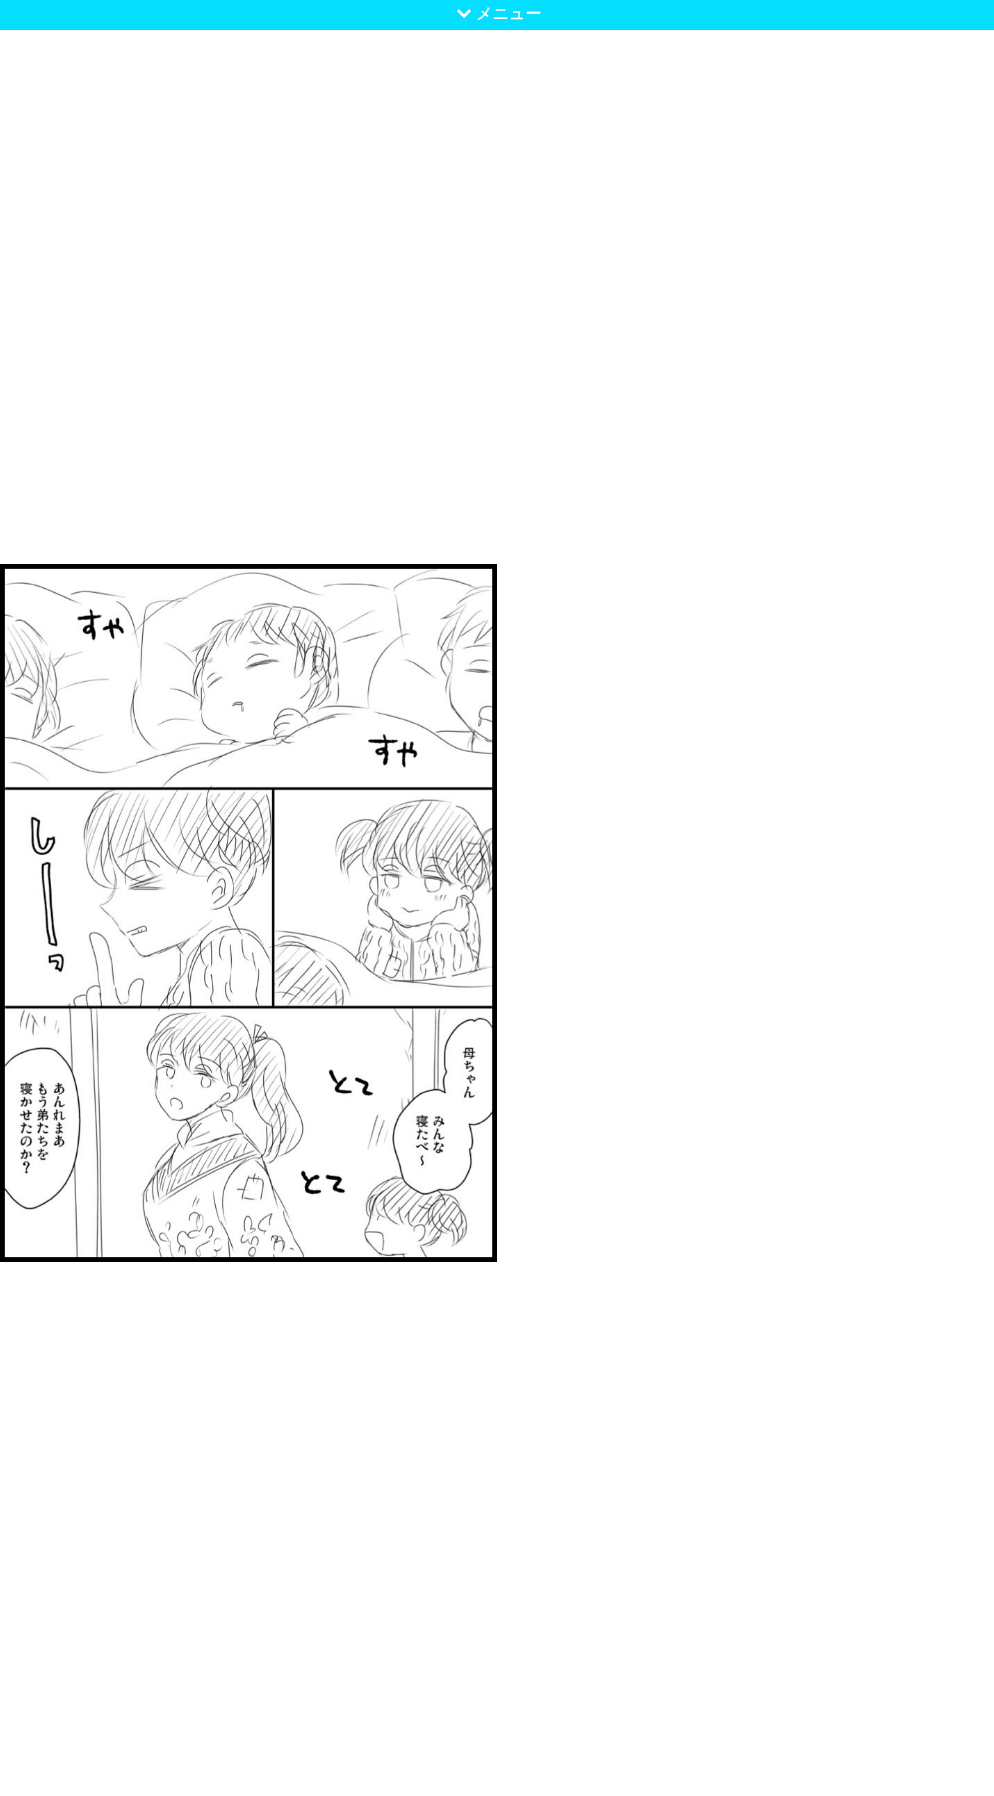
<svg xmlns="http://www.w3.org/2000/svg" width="994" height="1796">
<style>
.a{font:bold 16px WenQuanYi Zen Hei;fill:#fff}
</style>
<rect width="100%" height="100%" fill="#fff"/>
<path fill="#04deff" d="M0 0h994v30H0z"/>
<image href="1.png" x="456" y="9" width="16" height="10"/>
<path fill="none" stroke="#000" stroke-width="5" d="M2.5 566.5h492v693H2.5z"/>
<image href="2.png" x="4" y="568" width="489" height="690"/>
<text class="a" x="476" y="19">メニュー</text>
</svg>
